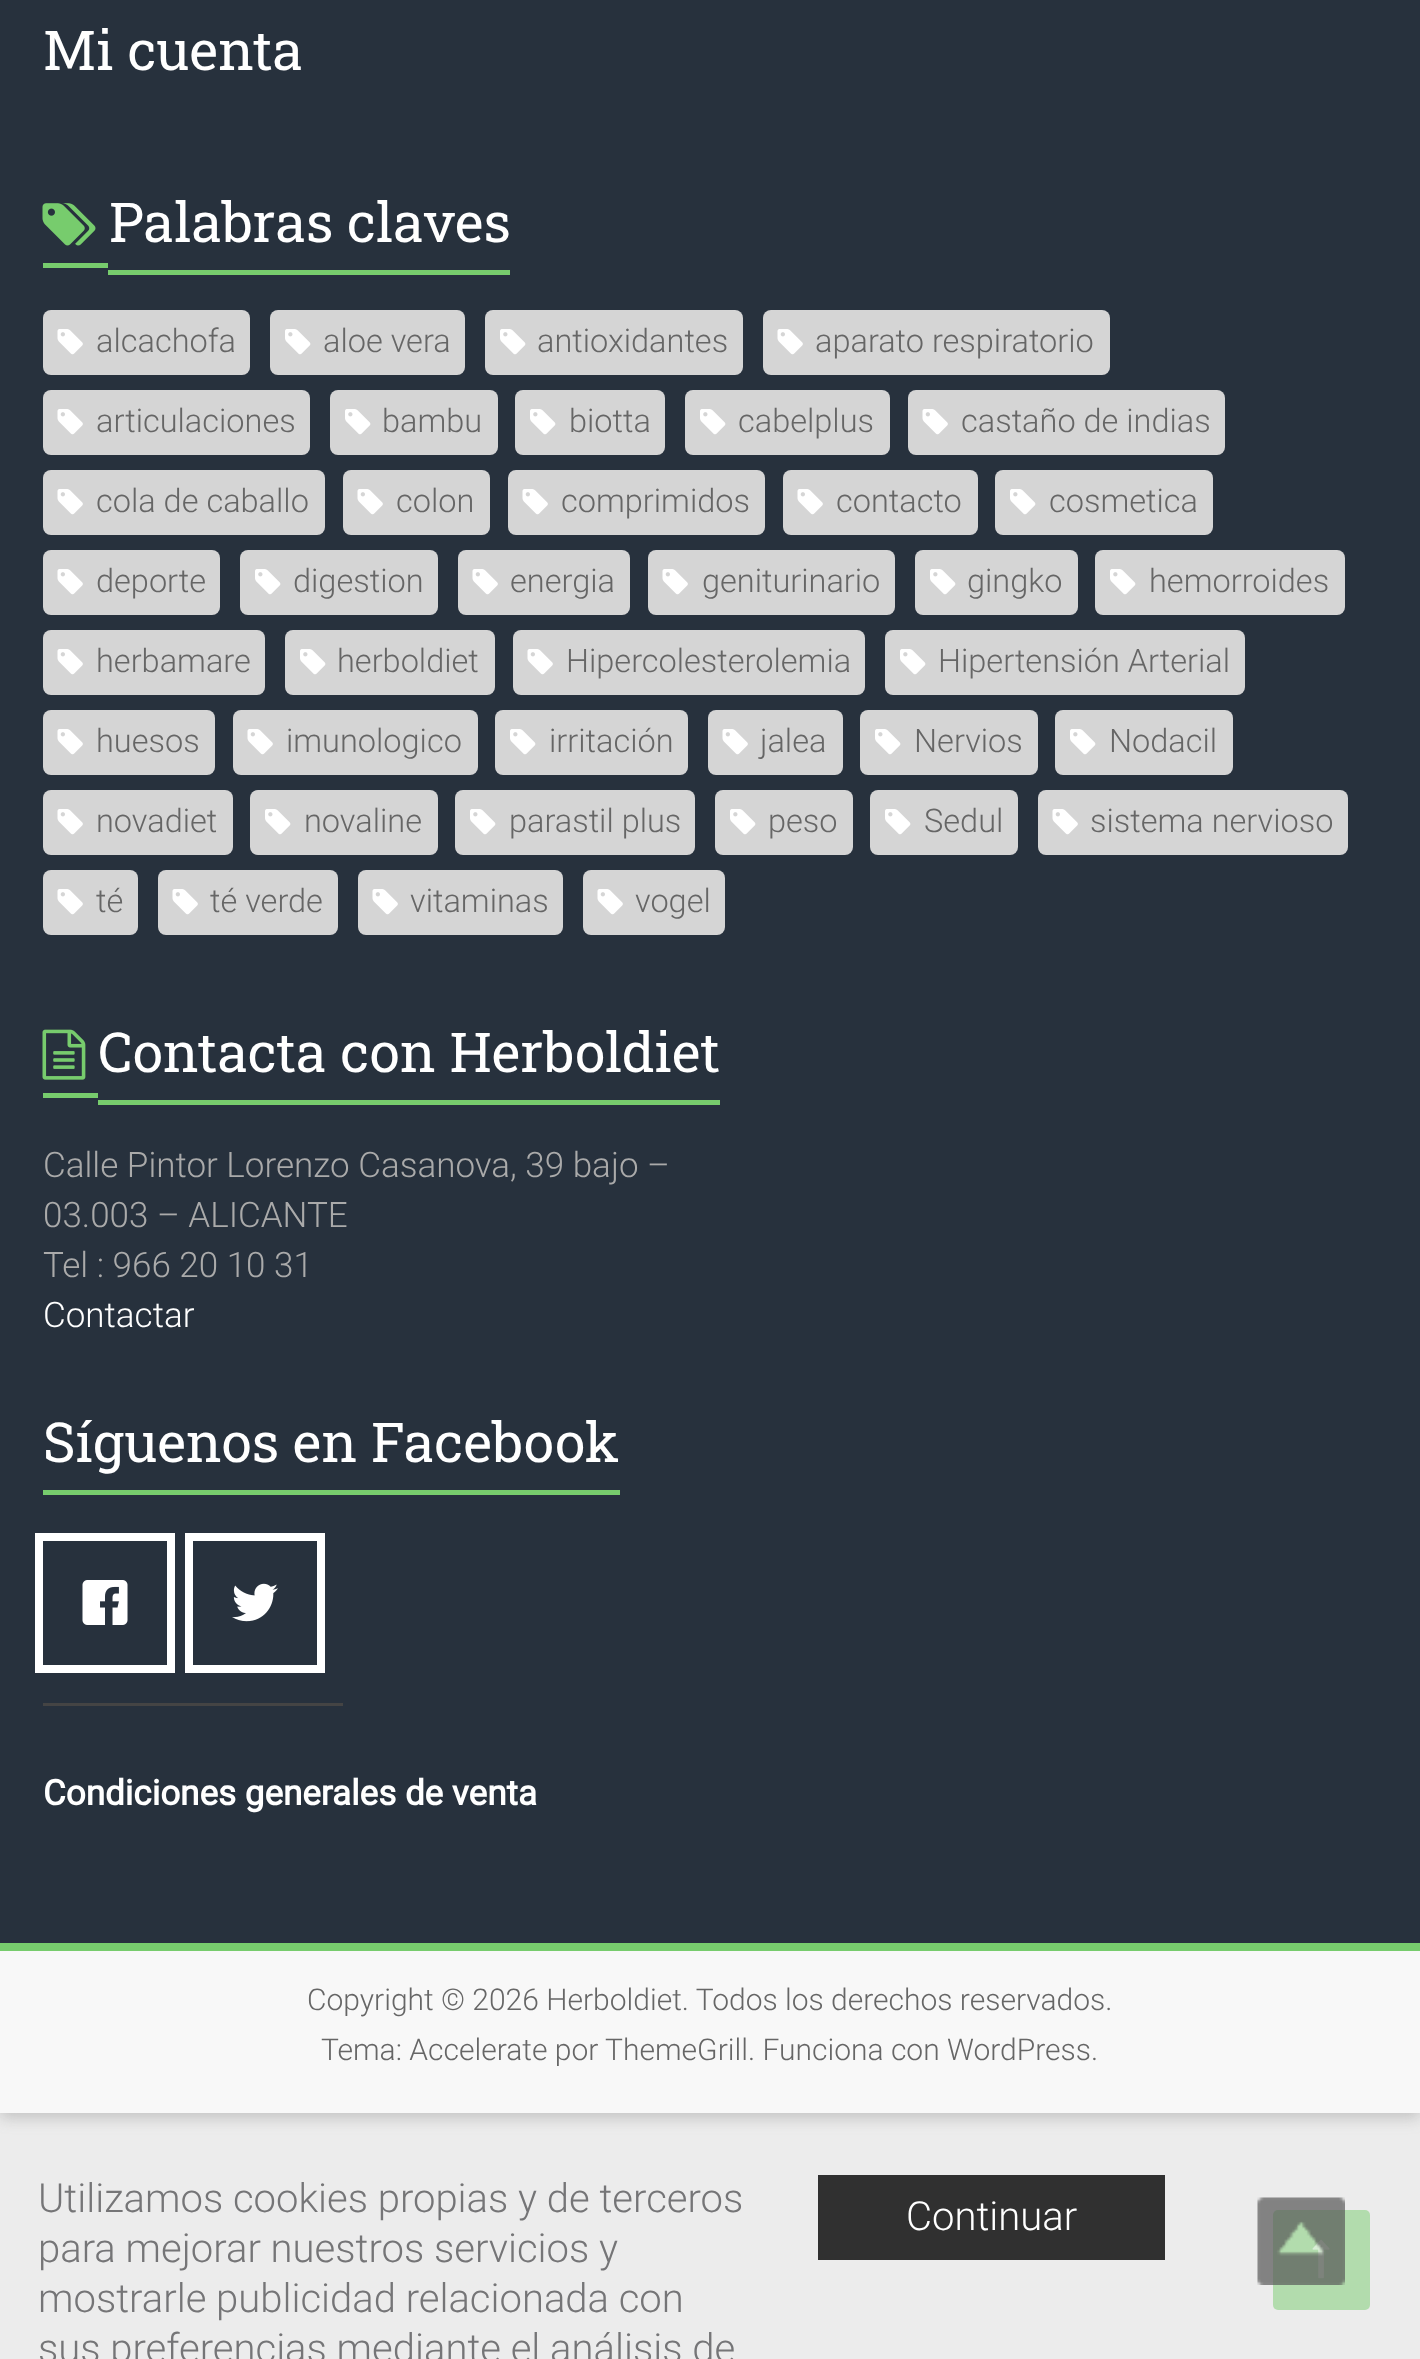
<svg xmlns="http://www.w3.org/2000/svg" width="1420" height="2359">
<style>
.a{font:55px Roboto Slab;fill:#fff}
.b{font:300 32.5px Roboto;fill:#666}
.c{font:300 35px Roboto;fill:#aaa}
.d{font:300 35px Roboto;fill:#fff}
.e{font:bold 35px Roboto;fill:#fff}
.f{font:300 30px Roboto;fill:#666}
.g{font:300 40px Roboto;fill:#757577}
.h{font:300 40px Roboto;fill:#fff}
</style>
<rect width="100%" height="100%" fill="#ececec"/>
<path fill="#6464644d" filter="blur(7.5px)" d="M0 -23h1420v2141H0z"/>
<path fill="#27313d" d="M0 0h1420v1943H0z"/>
<image href="1.png" x="42" y="203" width="54" height="43"/>
<path fill="#77cc6d" d="M43 263h65v5H43z"/>
<path fill="#77cc6d" d="M108 270h402v5H108z"/>
<rect fill="#d5d5d5" x="43" y="310" width="207" height="65" rx="8"/>
<image href="2.png" x="57" y="329" width="26" height="26"/>
<rect fill="#d5d5d5" x="270" y="310" width="195" height="65" rx="8"/>
<image href="3.png" x="285" y="329" width="26" height="26"/>
<rect fill="#d5d5d5" x="485" y="310" width="258" height="65" rx="8"/>
<image href="3.png" x="500" y="329" width="26" height="26"/>
<rect fill="#d5d5d5" x="763" y="310" width="347" height="65" rx="8"/>
<image href="2.png" x="777" y="329" width="26" height="26"/>
<rect fill="#d5d5d5" x="43" y="390" width="267" height="65" rx="8"/>
<image href="2.png" x="57" y="409" width="26" height="26"/>
<rect fill="#d5d5d5" x="330" y="390" width="168" height="65" rx="8"/>
<image href="3.png" x="345" y="409" width="26" height="26"/>
<rect fill="#d5d5d5" x="515" y="390" width="150" height="65" rx="8"/>
<image href="3.png" x="530" y="409" width="26" height="26"/>
<rect fill="#d5d5d5" x="685" y="390" width="205" height="65" rx="8"/>
<image href="3.png" x="700" y="409" width="26" height="26"/>
<rect fill="#d5d5d5" x="908" y="390" width="317" height="65" rx="8"/>
<image href="2.png" x="922" y="409" width="26" height="26"/>
<rect fill="#d5d5d5" x="43" y="470" width="282" height="65" rx="8"/>
<image href="2.png" x="57" y="489" width="26" height="26"/>
<rect fill="#d5d5d5" x="343" y="470" width="147" height="65" rx="8"/>
<image href="2.png" x="357" y="489" width="26" height="26"/>
<rect fill="#d5d5d5" x="508" y="470" width="257" height="65" rx="8"/>
<image href="2.png" x="522" y="489" width="26" height="26"/>
<rect fill="#d5d5d5" x="783" y="470" width="195" height="65" rx="8"/>
<image href="2.png" x="797" y="489" width="26" height="26"/>
<rect fill="#d5d5d5" x="995" y="470" width="218" height="65" rx="8"/>
<image href="3.png" x="1010" y="489" width="26" height="26"/>
<rect fill="#d5d5d5" x="43" y="550" width="177" height="65" rx="8"/>
<image href="2.png" x="57" y="569" width="26" height="26"/>
<rect fill="#d5d5d5" x="240" y="550" width="198" height="65" rx="8"/>
<image href="3.png" x="255" y="569" width="26" height="26"/>
<rect fill="#d5d5d5" x="458" y="550" width="172" height="65" rx="8"/>
<image href="2.png" x="472" y="569" width="26" height="26"/>
<rect fill="#d5d5d5" x="648" y="550" width="247" height="65" rx="8"/>
<image href="2.png" x="662" y="569" width="26" height="26"/>
<rect fill="#d5d5d5" x="915" y="550" width="163" height="65" rx="8"/>
<image href="3.png" x="930" y="569" width="26" height="26"/>
<rect fill="#d5d5d5" x="1095" y="550" width="250" height="65" rx="8"/>
<image href="3.png" x="1110" y="569" width="26" height="26"/>
<rect fill="#d5d5d5" x="43" y="630" width="222" height="65" rx="8"/>
<image href="2.png" x="57" y="649" width="26" height="26"/>
<rect fill="#d5d5d5" x="285" y="630" width="210" height="65" rx="8"/>
<image href="3.png" x="300" y="649" width="26" height="26"/>
<rect fill="#d5d5d5" x="513" y="630" width="352" height="65" rx="8"/>
<image href="2.png" x="527" y="649" width="26" height="26"/>
<rect fill="#d5d5d5" x="885" y="630" width="360" height="65" rx="8"/>
<image href="3.png" x="900" y="649" width="26" height="26"/>
<rect fill="#d5d5d5" x="43" y="710" width="172" height="65" rx="8"/>
<image href="2.png" x="57" y="729" width="26" height="26"/>
<rect fill="#d5d5d5" x="233" y="710" width="245" height="65" rx="8"/>
<image href="2.png" x="247" y="729" width="26" height="26"/>
<rect fill="#d5d5d5" x="495" y="710" width="193" height="65" rx="8"/>
<image href="3.png" x="510" y="729" width="26" height="26"/>
<rect fill="#d5d5d5" x="708" y="710" width="135" height="65" rx="8"/>
<image href="2.png" x="722" y="729" width="26" height="26"/>
<rect fill="#d5d5d5" x="860" y="710" width="178" height="65" rx="8"/>
<image href="3.png" x="875" y="729" width="26" height="26"/>
<rect fill="#d5d5d5" x="1055" y="710" width="178" height="65" rx="8"/>
<image href="3.png" x="1070" y="729" width="26" height="26"/>
<rect fill="#d5d5d5" x="43" y="790" width="190" height="65" rx="8"/>
<image href="2.png" x="57" y="809" width="26" height="26"/>
<rect fill="#d5d5d5" x="250" y="790" width="188" height="65" rx="8"/>
<image href="3.png" x="265" y="809" width="26" height="26"/>
<rect fill="#d5d5d5" x="455" y="790" width="240" height="65" rx="8"/>
<image href="3.png" x="470" y="809" width="26" height="26"/>
<rect fill="#d5d5d5" x="715" y="790" width="138" height="65" rx="8"/>
<image href="3.png" x="730" y="809" width="26" height="26"/>
<rect fill="#d5d5d5" x="870" y="790" width="148" height="65" rx="8"/>
<image href="3.png" x="885" y="809" width="26" height="26"/>
<rect fill="#d5d5d5" x="1038" y="790" width="310" height="65" rx="8"/>
<image href="2.png" x="1052" y="809" width="26" height="26"/>
<rect fill="#d5d5d5" x="43" y="870" width="95" height="65" rx="8"/>
<image href="2.png" x="57" y="889" width="26" height="26"/>
<rect fill="#d5d5d5" x="158" y="870" width="180" height="65" rx="8"/>
<image href="2.png" x="172" y="889" width="26" height="26"/>
<rect fill="#d5d5d5" x="358" y="870" width="205" height="65" rx="8"/>
<image href="2.png" x="372" y="889" width="26" height="26"/>
<rect fill="#d5d5d5" x="583" y="870" width="142" height="65" rx="8"/>
<image href="2.png" x="597" y="889" width="26" height="26"/>
<image href="4.png" x="42" y="1029" width="44" height="51"/>
<path fill="#77cc6d" d="M43 1093h55v5H43z"/>
<path fill="#77cc6d" d="M98 1100h622v5H98z"/>
<path fill="#77cc6d" d="M43 1490h577v5H43z"/>
<path fill="#444" d="M43 1703h300v3H43z"/>
<image href="5.png" x="82" y="1580" width="46" height="45"/>
<path fill="none" stroke="#fff" stroke-width="8" d="M39 1537h132v132H39z"/>
<image href="6.png" x="232" y="1583" width="46" height="39"/>
<path fill="none" stroke="#fff" stroke-width="8" d="M189 1537h132v132H189z"/>
<path fill="#f8f8f8" d="M0 1951h1420v162H0z"/>
<path fill="#77cc6d" d="M0 1943h1420v8H0z"/>
<rect fill="#b2dcad" x="1273" y="2210" width="97" height="100" rx="5"/>
<image href="7.png" x="1312" y="2239" width="18" height="40"/>
<path fill="#303030" d="M818 2175h347v85H818z"/>
<image href="8.png" x="1257" y="2197" width="88" height="88"/>
<text class="a" x="43" y="70">Mi cuenta</text>
<text class="a" x="109" y="242">Palabras claves</text>
<text class="b" x="96" y="352">alcachofa</text>
<text class="b" x="323" y="352">aloe vera</text>
<text class="b" x="537" y="352">antioxidantes</text>
<text class="b" x="815" y="352">aparato respiratorio</text>
<text class="b" x="96" y="432">articulaciones</text>
<text class="b" x="382" y="432">bambu</text>
<text class="b" x="569" y="432">biotta</text>
<text class="b" x="738" y="432">cabelplus</text>
<text class="b" x="961" y="432">castaño de indias</text>
<text class="b" x="96" y="512">cola de caballo</text>
<text class="b" x="396" y="512">colon</text>
<text class="b" x="561" y="512">comprimidos</text>
<text class="b" x="836" y="512">contacto</text>
<text class="b" x="1049" y="512">cosmetica</text>
<text class="b" x="96" y="592">deporte</text>
<text class="b" x="293" y="592">digestion</text>
<text class="b" x="510" y="592">energia</text>
<text class="b" x="702" y="592">geniturinario</text>
<text class="b" x="967" y="592">gingko</text>
<text class="b" x="1149" y="592">hemorroides</text>
<text class="b" x="96" y="672">herbamare</text>
<text class="b" x="337" y="672">herboldiet</text>
<text class="b" x="566" y="672">Hipercolesterolemia</text>
<text class="b" x="938" y="672">Hipertensión Arterial</text>
<text class="b" x="96" y="752">huesos</text>
<text class="b" x="286" y="752">imunologico</text>
<text class="b" x="549" y="752">irritación</text>
<text class="b" x="760" y="752">jalea</text>
<text class="b" x="914" y="752">Nervios</text>
<text class="b" x="1109" y="752">Nodacil</text>
<text class="b" x="96" y="832">novadiet</text>
<text class="b" x="304" y="832">novaline</text>
<text class="b" x="509" y="832">parastil plus</text>
<text class="b" x="768" y="832">peso</text>
<text class="b" x="924" y="832">Sedul</text>
<text class="b" x="1090" y="832">sistema nervioso</text>
<text class="b" x="96" y="912">té</text>
<text class="b" x="210" y="912">té verde</text>
<text class="b" x="410" y="912">vitaminas</text>
<text class="b" x="635" y="912">vogel</text>
<text class="a" x="98" y="1072">Contacta con Herboldiet</text>
<text class="c" x="43" y="1177">Calle Pintor Lorenzo Casanova, 39 bajo –</text>
<text class="c" x="43" y="1227">03.003 – ALICANTE</text>
<text class="c" x="43" y="1277">Tel : 966 20 10 31</text>
<text class="d" x="43" y="1327">Contactar</text>
<text class="a" x="43" y="1462">Síguenos en Facebook</text>
<text class="e" x="43" y="1805">Condiciones generales de venta</text>
<text class="f" x="307" y="2010">Copyright © 2026 Herboldiet. Todos los derechos reservados.</text>
<text class="f" x="321" y="2060">Tema: Accelerate por ThemeGrill. Funciona con WordPress.</text>
<text class="g" x="38" y="2212">Utilizamos cookies propias y de terceros</text>
<text class="g" x="38" y="2262">para mejorar nuestros servicios y</text>
<text class="g" x="38" y="2312">mostrarle publicidad relacionada con</text>
<text class="g" x="38" y="2362">sus preferencias mediante el análisis de</text>
<text class="h" x="906" y="2230">Continuar</text>
</svg>
